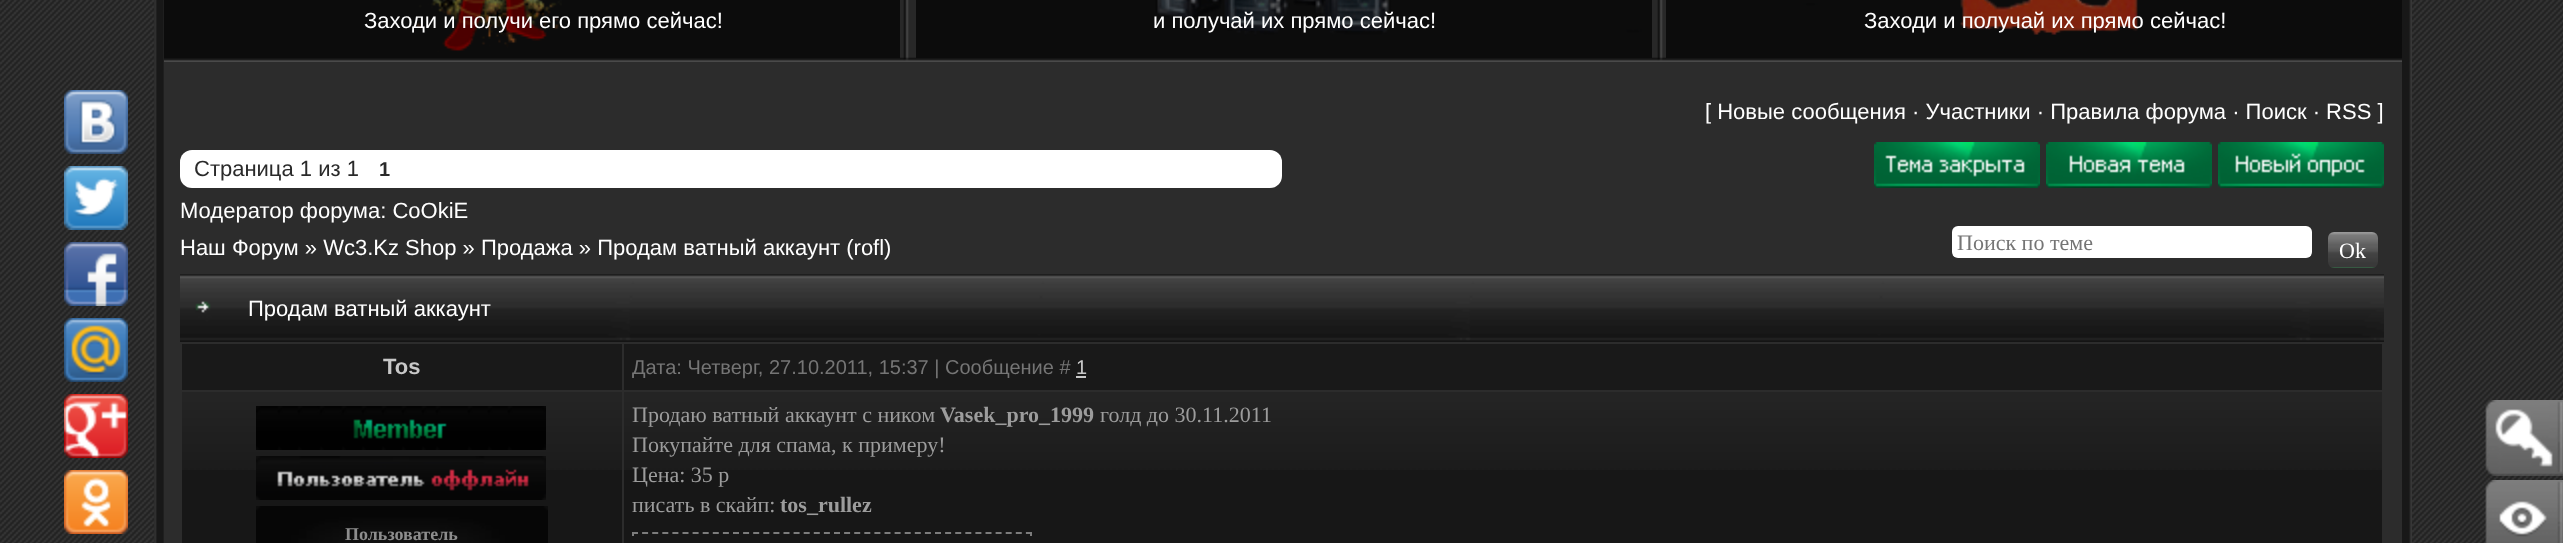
<svg xmlns="http://www.w3.org/2000/svg" width="2563" height="543">
<style>
.a{font:22px Liberation Sans;fill:#fff}
.b{font:22px Liberation Sans;fill:#2a2a2a}
.c{font:bold 20px Liberation Sans;fill:#2a2a2a}
.d{font:22px Liberation Serif;fill:#757575}
.e{font:22px Liberation Serif;fill:#fff}
.f{font:bold 22px Liberation Sans;fill:#c8c8c8}
.g{font:20px Liberation Sans;fill:#757575}
.h{font:20px Liberation Sans;fill:#c8c8c8}
.i{font:22px Liberation Serif;fill:#9c9c9c}
.j{font:bold 22px Liberation Serif;fill:#9c9c9c}
.k{font:bold 18px Liberation Serif;fill:#8d8d8d}
</style>
<rect width="100%" height="100%" fill="#fff"/>
<image href="1.png" x="0" y="0" width="2563" height="543"/>
<image href="2.png" x="154" y="0" width="10" height="543"/>
<image href="3.png" x="2402" y="0" width="10" height="543"/>
<path fill="#2c2c2c" d="M164 62h2238v481H164z"/>
<image href="4.png" x="164" y="0" width="2238" height="62"/>
<image href="5.png" x="164" y="0" width="736" height="58"/>
<image href="6.png" x="916" y="0" width="736" height="58"/>
<image href="7.png" x="1666" y="0" width="736" height="58"/>
<image href="8.png" x="64" y="90" width="64" height="64"/>
<image href="9.png" x="64" y="166" width="64" height="64"/>
<image href="10.png" x="64" y="242" width="64" height="64"/>
<image href="11.png" x="64" y="318" width="64" height="64"/>
<image href="12.png" x="64" y="394" width="64" height="64"/>
<image href="13.png" x="64" y="470" width="64" height="64"/>
<rect fill="#fff" x="180" y="150" width="1102" height="38" rx="12"/>
<image href="14.png" x="1874" y="142" width="166" height="46"/>
<image href="15.png" x="2046" y="142" width="166" height="46"/>
<image href="16.png" x="2218" y="142" width="166" height="46"/>
<rect fill="#fff" x="1952" y="226" width="360" height="32" rx="6"/>
<image href="17.png" x="2328" y="232" width="50" height="36"/>
<image href="18.png" x="180" y="274" width="2204" height="68"/>
<path fill="#191919" d="M182 344h440v46H182z"/>
<path fill="#191919" d="M624 344h1758v46H624z"/>
<path fill="#c8c8c8" d="M1076 376h10v2H1076z"/>
<path fill="#171717" d="M624 470h1758v73H624z"/>
<image href="19.png" x="624" y="392" width="1758" height="78"/>
<path fill="none" stroke="#7c7c7c" stroke-width="2" stroke-dasharray="6 4.1" d="M632 533h400"/>
<path fill="#7c7c7c" d="M1030 532h2v4H1030z"/>
<path fill="#7c7c7c" d="M632 532h2v4H632z"/>
<path fill="#171717" d="M182 470h440v73H182z"/>
<image href="20.png" x="182" y="392" width="440" height="78"/>
<image href="21.png" x="256" y="406" width="290" height="44"/>
<image href="22.png" x="256" y="456" width="290" height="44"/>
<image href="23.png" x="256" y="506" width="292" height="37"/>
<image href="24.png" x="2485" y="400" width="78" height="76"/>
<image href="25.png" x="2485" y="480" width="78" height="63"/>
<text class="a" x="364" y="28">Заходи и получи его прямо сейчас!</text>
<text class="a" x="1153" y="28">и получай их прямо сейчас!</text>
<text class="a" x="1864" y="28">Заходи и получай их прямо сейчас!</text>
<text class="a" x="1705" y="119">[ Новые сообщения · Участники · Правила форума · Поиск · RSS ]</text>
<text class="b" x="194" y="176">Страница 1 из 1</text>
<text class="c" x="379" y="176">1</text>
<text class="a" x="180" y="218">Модератор форума: CoOkiE</text>
<text class="a" x="180" y="255">Наш Форум » Wc3.Kz Shop » Продажа » Продам ватный аккаунт (rofl)</text>
<text class="d" x="1957" y="250">Поиск по теме</text>
<text class="e" x="2339" y="258">Ok</text>
<text class="a" x="248" y="316">Продам ватный аккаунт</text>
<text class="f" x="383" y="374">Tos</text>
<text class="g" x="632" y="374">Дата: Четверг, 27.10.2011, 15:37 | Сообщение #</text>
<text class="h" x="1076" y="374">1</text>
<text class="i" x="632" y="422">Продаю ватный аккаунт с ником</text>
<text class="j" x="940" y="422">Vasek_pro_1999</text>
<text class="i" x="1100" y="422">голд до 30.11.2011</text>
<text class="i" x="632" y="452">Покупайте для спама, к примеру!</text>
<text class="i" x="632" y="482">Цена: 35 р</text>
<text class="i" x="632" y="512">писать в скайп:</text>
<text class="j" x="780" y="512">tos_rullez</text>
<text class="k" x="345" y="540">Пользователь</text>
</svg>
